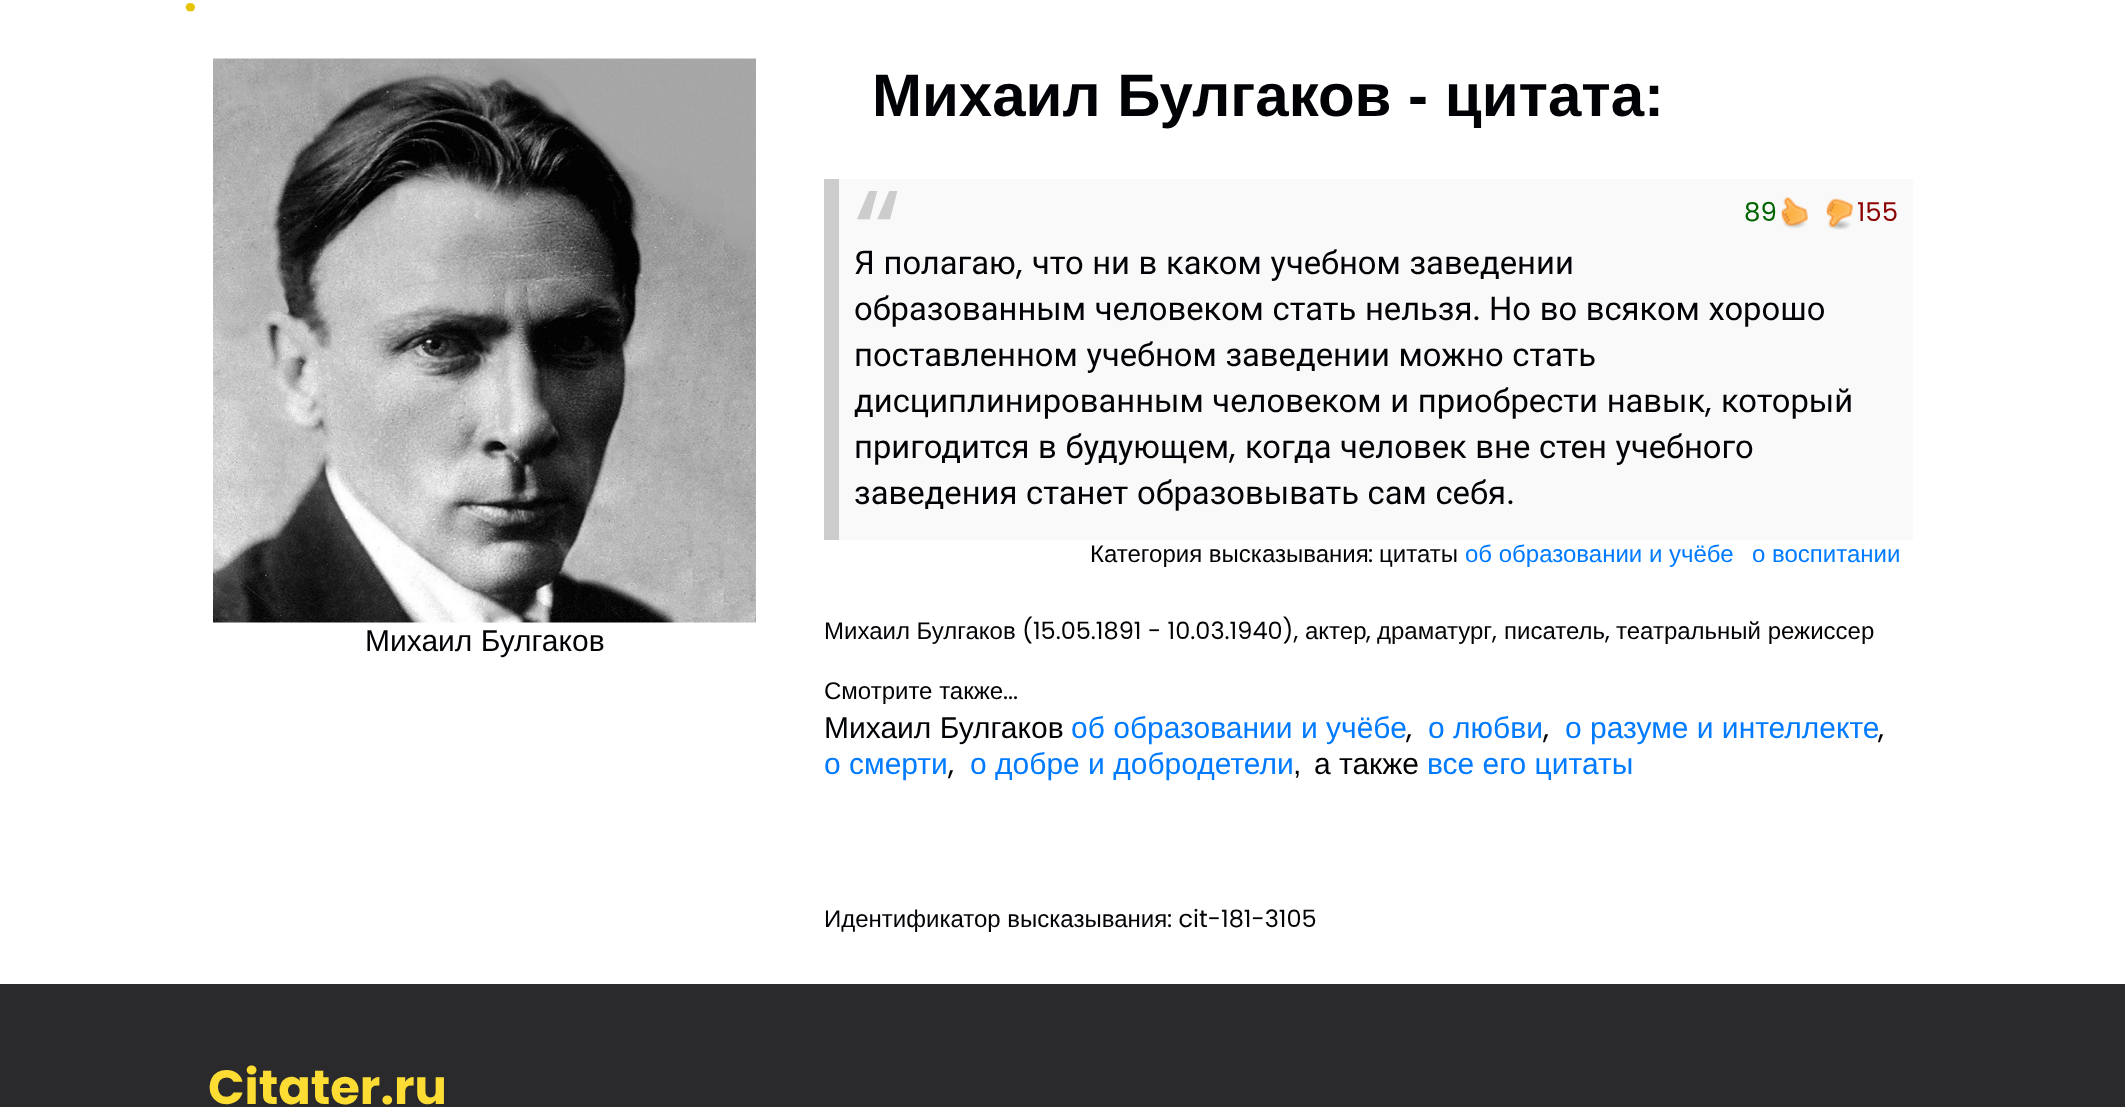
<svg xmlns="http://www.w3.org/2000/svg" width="2125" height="1107">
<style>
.a{font:bold 45px Poppins;fill:#e7c400}
.b{font:30px Liberation Sans;fill:#000205}
.c{font:bold 60px Liberation Sans;fill:#000205}
.d{font:125px Poppins;fill:#ccc}
.e{font:26px Poppins;fill:#006400}
.f{font:26px Poppins;fill:#8b0000}
.g{font:32.75px Roboto;fill:#000205}
.h{font:32.75px Poppins;fill:#000205}
.i{font:24px Liberation Sans;fill:#000205}
.j{font:24px Poppins;fill:#000205}
.k{font:24px Liberation Sans;fill:#007bff}
.l{font:30px Liberation Sans;fill:#007bff}
.m{font:30px Poppins;fill:#000205}
.n{font:bold 48px Poppins;fill:#fddd33}
</style>
<rect width="100%" height="100%" fill="#fff"/>
<image href="1.png" x="213" y="58" width="543" height="565"/>
<path fill="#f9f9f9" d="M839 179h1074v361H839z"/>
<path fill="#ccc" d="M824 179h15v361H824z"/>
<image href="2.png" x="1781" y="197" width="27" height="32"/>
<image href="3.png" x="1826" y="198" width="27" height="32"/>
<path fill="#2a2a2c" d="M0 984h2125v123H0z"/>
<text class="a" x="184" y="11">.</text>
<text class="b" x="365" y="651">Михаил Булгаков</text>
<text class="c" x="872" y="116">Михаил Булгаков - цитата:</text>
<text class="d" x="854" y="278">“</text>
<text class="e" x="1744" y="221">89</text>
<text class="f" x="1857" y="221">155</text>
<text class="g" x="854" y="274" word-spacing="0.5">Я полагаю</text>
<text class="h" x="1016" y="274">,</text>
<text class="g" x="1032" y="274" word-spacing="0.5">что ни в каком учебном заведении</text>
<text class="g" x="854" y="320" word-spacing="0.5">образованным человеком стать нельзя</text>
<text class="h" x="1473" y="320">.</text>
<text class="g" x="1489" y="320" word-spacing="0.5">Но во всяком хорошо</text>
<text class="g" x="854" y="366" word-spacing="0.5">поставленном учебном заведении можно стать</text>
<text class="g" x="854" y="412" word-spacing="0.5">дисциплинированным человеком и приобрести навык</text>
<text class="h" x="1705" y="412">,</text>
<text class="g" x="1721" y="412">который</text>
<text class="g" x="854" y="458" word-spacing="0.5">пригодится в будующем</text>
<text class="h" x="1229" y="458">,</text>
<text class="g" x="1245" y="458" word-spacing="0.5">когда человек вне стен учебного</text>
<text class="g" x="854" y="504" word-spacing="0.5">заведения станет образовывать сам себя</text>
<text class="h" x="1507" y="504">.</text>
<text class="i" x="1090" y="562">Категория высказывания</text>
<text class="j" x="1368" y="562">:</text>
<text class="i" x="1379" y="562">цитаты</text>
<text class="k" x="1465" y="562">об образовании и учёбе</text>
<text class="k" x="1752" y="562">о воспитании</text>
<text class="i" x="824" y="639">Михаил Булгаков</text>
<text class="j" x="1022" y="639">(15.05.1891 - 10.03.1940),</text>
<text class="i" x="1305" y="639">актер</text>
<text class="j" x="1366" y="639">,</text>
<text class="i" x="1377" y="639">драматург</text>
<text class="j" x="1492" y="639">,</text>
<text class="i" x="1504" y="639">писатель</text>
<text class="j" x="1605" y="639">,</text>
<text class="i" x="1616" y="639">театральный режиссер</text>
<text class="i" x="824" y="699">Смотрите также</text>
<text class="j" x="1003" y="699">...</text>
<text class="b" x="824" y="738">Михаил Булгаков</text>
<text class="l" x="1071" y="738">об образовании и учёбе</text>
<text class="m" x="1406" y="738">,</text>
<text class="l" x="1428" y="738">о любви</text>
<text class="m" x="1543" y="738">,</text>
<text class="l" x="1565" y="738">о разуме и интеллекте</text>
<text class="m" x="1878" y="738">,</text>
<text class="l" x="824" y="774">о смерти</text>
<text class="m" x="948" y="774">,</text>
<text class="l" x="970" y="774">о добре и добродетели</text>
<text class="b" x="1293" y="774">,</text>
<text class="b" x="1314" y="774">а также</text>
<text class="l" x="1427" y="774">все его цитаты</text>
<text class="i" x="824" y="927">Идентификатор высказывания</text>
<text class="j" x="1167" y="927">: cit-181-3105</text>
<text class="n" x="208" y="1104">Citater.ru</text>
</svg>
